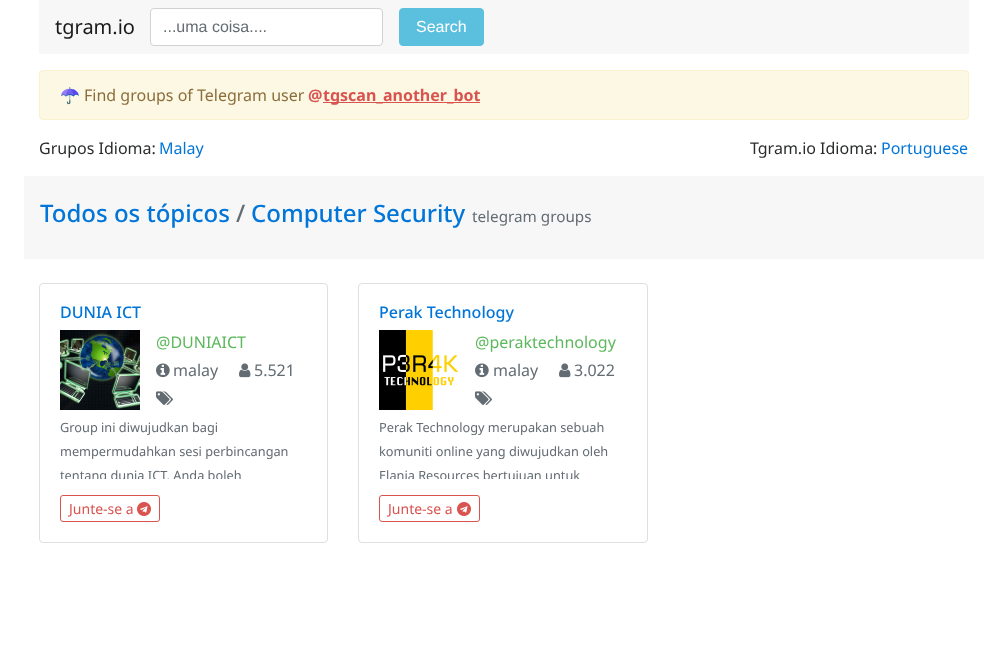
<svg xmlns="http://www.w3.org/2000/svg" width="1007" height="667">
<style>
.a{font:20px Noto Sans;fill:#191919}
.b{font:16px Liberation Sans;fill:#636c72}
.c{font:16px Liberation Sans;fill:#fff}
.d{font:16px Noto Color Emoji;fill:#8a6d3b}
.e{font:16px Noto Sans;fill:#8a6d3b}
.f{font:bold 16px Noto Sans;fill:#d9534f}
.g{font:16px Noto Sans;fill:#292b2c}
.h{font:16px Noto Sans;fill:#0275d8}
.i{font:500 24px Noto Sans;fill:#0275d8}
.j{font:500 24px Noto Sans;fill:#636c72}
.k{font:15.25px Noto Sans;fill:#636c72}
.l{font:500 16px Noto Sans;fill:#0275d8}
.m{font:16px Noto Sans;fill:#5cb85c}
.n{font:16px Noto Sans;fill:#636c72}
.o{font:12.75px Noto Sans;fill:#636c72}
.p{font:14px Noto Sans;fill:#d9534f}
</style>
<defs>
<clipPath id="clip1"><path d="M60 414h247v65H60z"/></clipPath>
<clipPath id="clip2"><path d="M379 414h248v65H379z"/></clipPath>
</defs>
<rect width="100%" height="100%" fill="#fff"/>
<path fill="#f7f7f7" d="M39 0h930v54H39z"/>
<rect fill="#fff" stroke="#d2d2d2" x="150.5" y="8.5" width="232" height="37" rx="3.5"/>
<rect fill="#5bc0de" stroke="#5bc0de" x="399.5" y="8.5" width="84" height="37" rx="3.5"/>
<rect fill="#fcf8e3" stroke="#faf2cc" x="39.5" y="70.5" width="929" height="49" rx="3.5"/>
<path fill="#d9534f" d="M323 102h157v1H323z"/>
<path fill="#f7f7f7" d="M24 176h960v83H24z"/>
<rect fill="none" stroke="#dfdfdf" x="39.5" y="283.5" width="288" height="259" rx="3.5"/>
<image href="1.png" x="60" y="330" width="80" height="80"/>
<image href="2.png" x="156" y="363" width="14" height="15"/>
<image href="3.png" x="239" y="363" width="12" height="15"/>
<image href="4.png" x="156" y="391" width="17" height="14"/>
<rect fill="none" stroke="#d9534f" x="60.5" y="495.5" width="99" height="26" rx="2.5"/>
<image href="5.png" x="137" y="502" width="14" height="14"/>
<rect fill="none" stroke="#dfdfdf" x="358.5" y="283.5" width="289" height="259" rx="3.5"/>
<image href="6.png" x="379" y="330" width="80" height="80"/>
<image href="2.png" x="475" y="363" width="14" height="15"/>
<image href="3.png" x="559" y="363" width="12" height="15"/>
<image href="4.png" x="475" y="391" width="17" height="14"/>
<rect fill="none" stroke="#d9534f" x="379.5" y="495.5" width="100" height="26" rx="2.5"/>
<image href="5.png" x="457" y="502" width="14" height="14"/>
<text class="a" x="55" y="34">tgram.io</text>
<text class="b" x="163" y="32">...uma coisa....</text>
<text class="c" x="416" y="32">Search</text>
<text class="d" x="60" y="101">☂️</text>
<text class="e" x="84" y="101">Find groups of Telegram user</text>
<text class="f" x="308" y="101">@</text>
<text class="f" x="323" y="101">tgscan_another_bot</text>
<text class="g" x="39" y="154">Grupos Idioma:</text>
<text class="h" x="159" y="154">Malay</text>
<text class="g" x="750" y="154">Tgram.io Idioma:</text>
<text class="h" x="881" y="154">Portuguese</text>
<text class="i" x="40" y="222">Todos os tópicos</text>
<text class="j" x="236" y="222">/</text>
<text class="i" x="251" y="222">Computer Security</text>
<text class="k" x="472" y="222">telegram groups</text>
<text class="l" x="60" y="318">DUNIA ICT</text>
<text class="m" x="156" y="348">@DUNIAICT</text>
<text class="n" x="173" y="376">malay</text>
<text class="n" x="254" y="376">5.521</text>
<text class="o" x="60" y="432">Group ini diwujudkan bagi</text>
<text class="o" x="60" y="456">mempermudahkan sesi perbincangan</text>
<g clip-path="url(#clip1)">
<text class="o" x="60" y="480">tentang dunia ICT. Anda boleh</text>
</g>
<text class="p" x="69" y="514">Junte-se a</text>
<text class="l" x="379" y="318">Perak Technology</text>
<text class="m" x="475" y="348">@peraktechnology</text>
<text class="n" x="493" y="376">malay</text>
<text class="n" x="574" y="376">3.022</text>
<text class="o" x="379" y="432">Perak Technology merupakan sebuah</text>
<text class="o" x="379" y="456">komuniti online yang diwujudkan oleh</text>
<g clip-path="url(#clip2)">
<text class="o" x="379" y="480">Elania Resources bertujuan untuk</text>
</g>
<text class="p" x="388" y="514">Junte-se a</text>
</svg>
